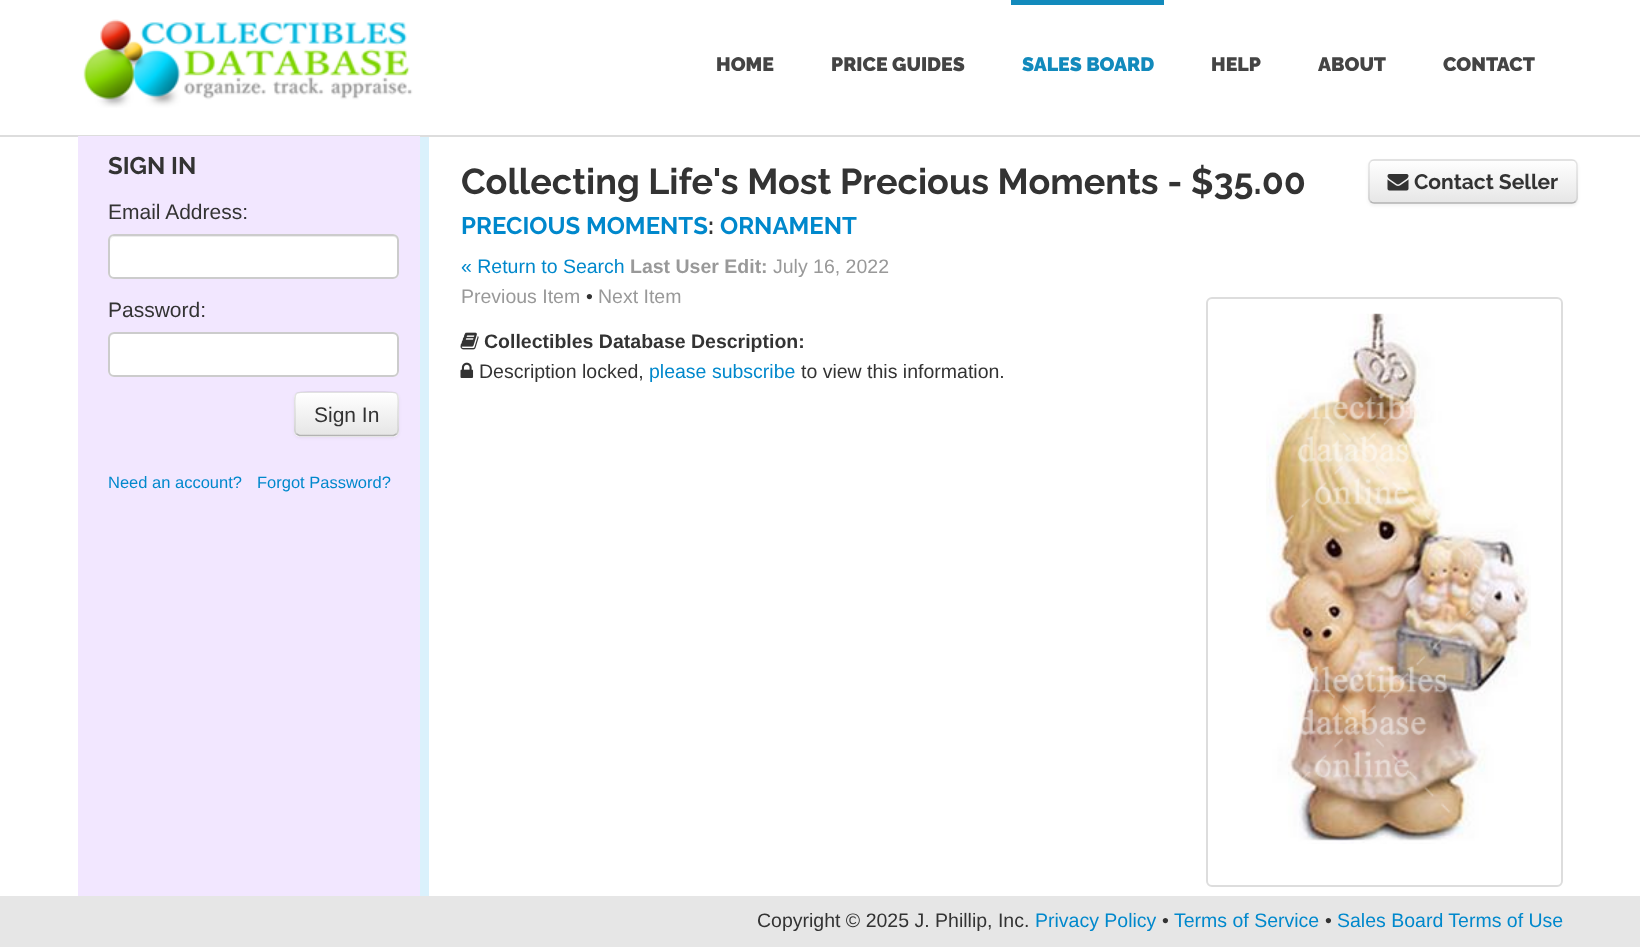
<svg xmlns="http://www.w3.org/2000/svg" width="1640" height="947">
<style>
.a{font:900 19.5px Raleway;fill:#444}
.b{font:900 19.5px Raleway;fill:#128abc}
.c{font:bold 24px Raleway;fill:#333}
.d{font:21px Liberation Sans;fill:#333}
.e{font:16.5px Liberation Sans;fill:#08c}
.f{font:bold 36px Raleway;fill:#333}
.g{font:bold 21px Raleway;fill:#333}
.h{font:bold 24px Raleway;fill:#08c}
.i{font:19.5px Liberation Sans;fill:#08c}
.j{font:bold 19.5px Liberation Sans;fill:#999}
.k{font:19.5px Liberation Sans;fill:#999}
.l{font:19.5px Liberation Sans;fill:#333}
.m{font:bold 19.5px Liberation Sans;fill:#333}
</style>
<defs>
<clipPath id="clip1"><rect x="294" y="392" width="105" height="45" rx="6"/></clipPath>
<linearGradient id="g1" gradientUnits="userSpaceOnUse" x1="347" y1="393" x2="347" y2="435"><stop offset="0" stop-color="#fff"/><stop offset="1" stop-color="#e6e6e6"/></linearGradient>
<clipPath id="clip2"><rect x="1368" y="159" width="210" height="45" rx="6"/></clipPath>
<linearGradient id="g2" gradientUnits="userSpaceOnUse" x1="1473" y1="160" x2="1473" y2="203"><stop offset="0" stop-color="#fff"/><stop offset="1" stop-color="#e6e6e6"/></linearGradient>
</defs>
<rect width="100%" height="100%" fill="#fff"/>
<path fill="#ddd" d="M0 135h1640v2H0z"/>
<image href="1.png" x="83" y="19" width="330" height="89"/>
<path fill="#128abc" d="M1011 0h153v5H1011z"/>
<path fill="#f2e7ff" d="M78 136h342v760H78z"/>
<path fill="#daf1fc" d="M420 137h9v759H420z"/>
<rect fill="#fff" x="108" y="234" width="291" height="45" rx="6"/>
<path fill="#ececec" d="M114 237h279c2 0 5 2 5 5v-1c0-3-2-5-5-5h-278c-3 0-5 2-5 5v1c0-3 2-5 4-5z"/>
<rect fill="none" stroke="#ccc" stroke-width="2" x="109" y="235" width="289" height="43" rx="5"/>
<rect fill="#fff" x="108" y="332" width="291" height="45" rx="6"/>
<path fill="#ececec" d="M114 334h279c2 0 5 3 5 5v-1c0-3-2-5-5-5h-278c-3 0-5 2-5 5v1c0-2 2-5 4-5z"/>
<rect fill="none" stroke="#ccc" stroke-width="2" x="109" y="333" width="289" height="43" rx="5"/>
<rect fill="#0000000d" filter="blur(1.5px)" x="294" y="393" width="105" height="45" rx="6"/>
<rect fill="#f5f5f5" x="294" y="392" width="105" height="45" rx="6"/>
<g clip-path="url(#clip1)">
<path fill="url(#g1)" d="M294 393h105v42H294z"/>
</g>
<path fill="none" stroke="#b3b3b3" stroke-width="1.5" d="M396.5 434l-3 1.5h-94l-3-1.5"/>
<path fill="none" stroke="#0000001a" stroke-width="1.5" d="M296.5 434c-2.5-2-1.5-6-1.5-9v-11c0-24-4-22 20.5-22h62c24.5 0 20.5-2 20.5 22v11c0 3 1 7-1.5 9"/>
<rect fill="#0000000d" filter="blur(1.5px)" x="1368" y="161" width="210" height="45" rx="6"/>
<rect fill="#f5f5f5" x="1368" y="159" width="210" height="45" rx="6"/>
<g clip-path="url(#clip2)">
<path fill="url(#g2)" d="M1368 161h210v42H1368z"/>
</g>
<path fill="#ffffff33" d="M1374 162h198c2 0 4 2 4 4v35c1-1 1-2 1-3v-32c0-3-2-5-5-5h-197c-3 0-5 2-5 5c0-2 2-4 4-4z"/>
<path fill="none" stroke="#b3b3b3" stroke-width="1.5" d="M1575.5 201.5c-1 1-2 1.5-3.5 1.5h-198c-1.5 0-2.5-.5-3.5-1.5"/>
<path fill="none" stroke="#0000001a" stroke-width="1.5" d="M1370.5 201.5c-1-1-1.5-2-1.5-3.5v-33c0-1.5 .5-2.5 1.5-3.5c1-1 2-1.5 3.5-1.5h198c1.5 0 2.5 .5 3.5 1.5c1 1 1.5 2 1.5 3.5v33c0 1.5-.5 2.5-1.5 3.5"/>
<image href="2.png" x="1387" y="174" width="22" height="17"/>
<rect fill="none" stroke="#ddd" stroke-width="2" x="1207" y="298" width="355" height="588" rx="5"/>
<image href="3.png" x="1266" y="313" width="265" height="531"/>
<image href="4.png" x="460" y="332" width="19" height="18"/>
<image href="5.png" x="460" y="362" width="14" height="16"/>
<path fill="#e6e6e6" d="M0 896h1640v51H0z"/>
<text class="a" x="716" y="71">HOME</text>
<text class="a" x="831" y="71">PRICE GUIDES</text>
<text class="b" x="1022" y="71">SALES BOARD</text>
<text class="a" x="1211" y="71">HELP</text>
<text class="a" x="1318" y="71">ABOUT</text>
<text class="a" x="1443" y="71">CONTACT</text>
<text class="c" x="108" y="174">SIGN IN</text>
<text class="d" x="108" y="219">Email Address:</text>
<text class="d" x="108" y="317">Password:</text>
<text class="d" x="314" y="422">Sign In</text>
<text class="e" x="108" y="488">Need an account?</text>
<text class="e" x="257" y="488">Forgot Password?</text>
<text class="f" x="461" y="194">Collecting Life's Most Precious Moments - $35.00</text>
<text class="g" x="1414" y="189">Contact Seller</text>
<text class="h" x="461" y="234">PRECIOUS MOMENTS</text>
<text class="c" x="708" y="234">:</text>
<text class="h" x="720" y="234">ORNAMENT</text>
<text class="i" x="461" y="273">« Return to Search</text>
<text class="j" x="630" y="273">Last User Edit:</text>
<text class="k" x="773" y="273">July 16, 2022</text>
<text class="k" x="461" y="303">Previous Item</text>
<text class="l" x="586" y="303">•</text>
<text class="k" x="598" y="303">Next Item</text>
<text class="m" x="484" y="348">Collectibles Database Description:</text>
<text class="l" x="479" y="378">Description locked,</text>
<text class="i" x="649" y="378">please subscribe</text>
<text class="l" x="801" y="378">to view this information.</text>
<text class="l" x="757" y="927">Copyright © 2025 J. Phillip, Inc.</text>
<text class="i" x="1035" y="927">Privacy Policy</text>
<text class="l" x="1162" y="927">•</text>
<text class="i" x="1174" y="927">Terms of Service</text>
<text class="l" x="1325" y="927">•</text>
<text class="i" x="1337" y="927">Sales Board Terms of Use</text>
</svg>
